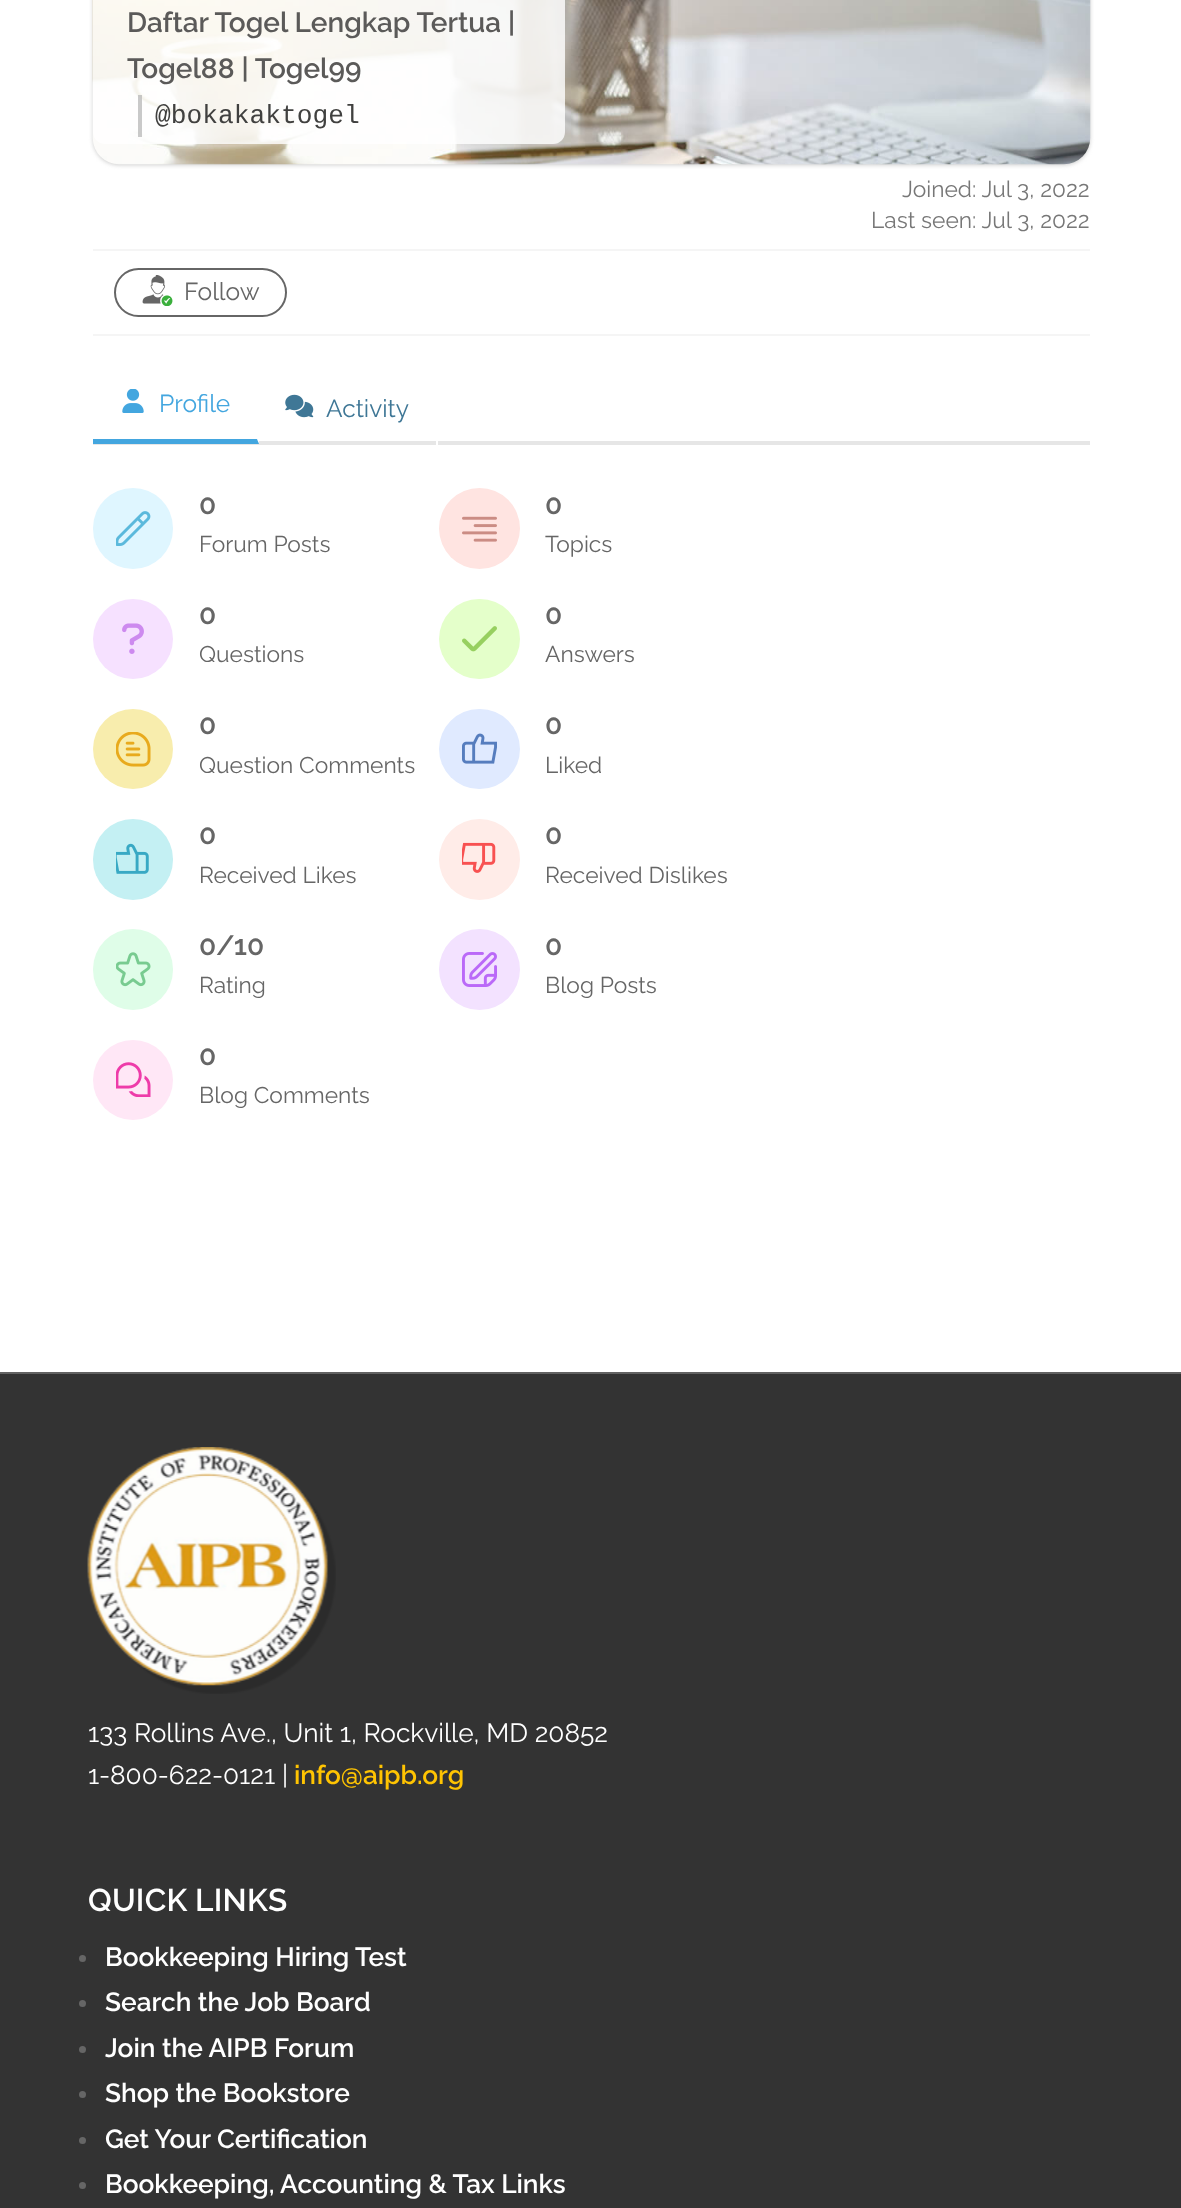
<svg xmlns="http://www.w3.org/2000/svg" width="1181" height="2208">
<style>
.a{font:600 28px Raleway;fill:#5b5a59}
.b{font:26.25px Liberation Mono;fill:#40403f}
.c{font:22.75px Raleway;fill:#777}
.d{font:24.5px Raleway;fill:#666}
.e{font:24.5px Raleway;fill:#43a6df}
.f{font:24.5px Raleway;fill:#3f7796}
.g{font:600 28px Raleway;fill:#666}
.h{font:22.75px Raleway;fill:#666}
.i{font:26.25px Raleway;fill:#fff}
.j{font:600 26.25px Raleway;fill:#ffc402}
.k{font:600 31.5px Raleway;letter-spacing:0.25px;fill:#fff}
.l{font:600 26.25px Raleway;fill:#fff}
</style>
<rect width="100%" height="100%" fill="#333"/>
<path fill="#fff" d="M0 0h1181v1372H0z"/>
<rect fill="#ccc" filter="blur(2px)" x="93" y="-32" width="997" height="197" rx="26"/>
<image href="1.png" x="92" y="0" width="999" height="165"/>
<rect fill="#ffffffcc" x="93" y="-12" width="472" height="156" rx="12"/>
<path fill="#bbbbbbcc" d="M138 95h4v42H138z"/>
<path fill="#f5f5f5" d="M93 249h997v2H93z"/>
<path fill="#f5f5f5" d="M93 334h997v2H93z"/>
<rect fill="none" stroke="#666" stroke-width="2" x="115" y="269" width="171" height="47" rx="23.5"/>
<image href="2.png" x="142" y="275" width="31" height="31"/>
<path fill="#e6e6e6" d="M93 441h997v4H93z"/>
<path fill="#fff" d="M259 371v73l-2-5v-68z"/>
<path fill="#43a6df" d="M259 444h-166v-5h164z"/>
<image href="3.png" x="122" y="389" width="22" height="24"/>
<path fill="#fff" d="M436 441h2v4H436z"/>
<image href="4.png" x="285" y="394" width="29" height="24"/>
<rect fill="#dff6ff" x="93" y="488" width="80" height="81" rx="40"/>
<image href="5.png" x="116" y="511" width="35" height="35"/>
<circle fill="#ffe4e1" cx="479.5" cy="528.5" r="40.5"/>
<image href="6.png" x="462" y="516" width="35" height="26"/>
<circle fill="#f6e1ff" cx="133" cy="639" r="40"/>
<image href="7.png" x="122" y="623" width="22" height="31"/>
<rect fill="#e4ffca" x="439" y="599" width="81" height="80" rx="40"/>
<image href="8.png" x="462" y="626" width="35" height="26"/>
<circle fill="#f8edad" cx="133" cy="749" r="40"/>
<image href="9.png" x="116" y="732" width="35" height="35"/>
<rect fill="#e0eaff" x="439" y="709" width="81" height="80" rx="40"/>
<image href="10.png" x="462" y="733" width="35" height="31"/>
<rect fill="#c4f0f3" x="93" y="819" width="80" height="81" rx="40"/>
<image href="11.png" x="116" y="843" width="33" height="31"/>
<circle fill="#ffece8" cx="479.5" cy="859.5" r="40.5"/>
<image href="12.png" x="462" y="842" width="34" height="31"/>
<rect fill="#dffde8" x="93" y="929" width="80" height="81" rx="40"/>
<image href="13.png" x="116" y="952" width="35" height="35"/>
<circle fill="#f3e2ff" cx="479.5" cy="969.5" r="40.5"/>
<image href="14.png" x="462" y="952" width="35" height="35"/>
<circle fill="#ffe7f6" cx="133" cy="1080" r="40"/>
<image href="15.png" x="116" y="1062" width="35" height="35"/>
<path fill="#626262" d="M0 1372h1181v2H0z"/>
<image href="16.png" x="87" y="1447" width="249" height="247"/>
<circle fill="#666" cx="82.5" cy="1958.5" r="3.5"/>
<circle fill="#666" cx="82.5" cy="2003.5" r="3.5"/>
<circle fill="#666" cx="82.5" cy="2049.5" r="3.5"/>
<circle fill="#666" cx="82.5" cy="2094.5" r="3.5"/>
<circle fill="#666" cx="82.5" cy="2140.5" r="3.5"/>
<circle fill="#666" cx="82.5" cy="2185.5" r="3.5"/>
<text class="a" x="127" y="32">Daftar Togel Lengkap Tertua |</text>
<text class="a" x="127" y="78">Togel88 | Togel99</text>
<text class="b" x="155" y="123">@bokakaktogel</text>
<text class="c" x="902" y="197">Joined: Jul 3, 2022</text>
<text class="c" x="871" y="228">Last seen: Jul 3, 2022</text>
<text class="d" x="184" y="300">Follow</text>
<text class="e" x="159" y="412">Profile</text>
<text class="f" x="326" y="417">Activity</text>
<text class="g" x="199" y="514">0</text>
<text class="h" x="199" y="552">Forum Posts</text>
<text class="g" x="545" y="514">0</text>
<text class="h" x="545" y="552">Topics</text>
<text class="g" x="199" y="624">0</text>
<text class="h" x="199" y="662">Questions</text>
<text class="g" x="545" y="624">0</text>
<text class="h" x="545" y="662">Answers</text>
<text class="g" x="199" y="734">0</text>
<text class="h" x="199" y="773">Question Comments</text>
<text class="g" x="545" y="734">0</text>
<text class="h" x="545" y="773">Liked</text>
<text class="g" x="199" y="844">0</text>
<text class="h" x="199" y="883">Received Likes</text>
<text class="g" x="545" y="844">0</text>
<text class="h" x="545" y="883">Received Dislikes</text>
<text class="g" x="199" y="955">0/10</text>
<text class="h" x="199" y="993">Rating</text>
<text class="g" x="545" y="955">0</text>
<text class="h" x="545" y="993">Blog Posts</text>
<text class="g" x="199" y="1065">0</text>
<text class="h" x="199" y="1103">Blog Comments</text>
<text class="i" x="88" y="1742">133 Rollins Ave., Unit 1, Rockville, MD 20852</text>
<text class="i" x="88" y="1784">1-800-622-0121 |</text>
<text class="j" x="294" y="1784">info@aipb.org</text>
<text class="k" x="88" y="1911">QUICK LINKS</text>
<text class="l" x="105" y="1966">Bookkeeping Hiring Test</text>
<text class="l" x="105" y="2011">Search the Job Board</text>
<text class="l" x="105" y="2057">Join the AIPB Forum</text>
<text class="l" x="105" y="2102">Shop the Bookstore</text>
<text class="l" x="105" y="2148">Get Your Certification</text>
<text class="l" x="105" y="2193">Bookkeeping, Accounting &amp; Tax Links</text>
</svg>
